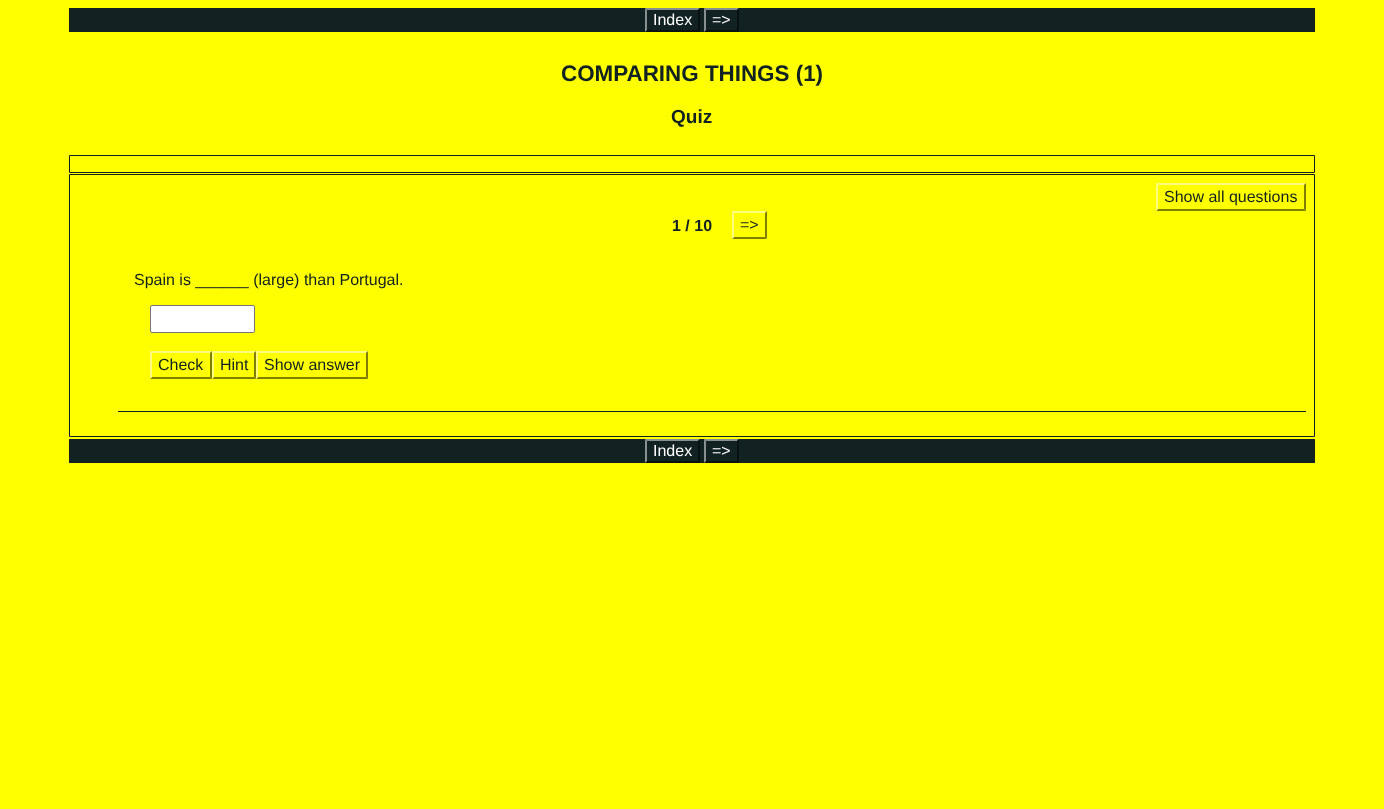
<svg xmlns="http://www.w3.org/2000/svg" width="1384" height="809">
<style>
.a{font:16px Liberation Sans;fill:#fff}
.b{font:bold 22.4px Liberation Sans;fill:#122222}
.c{font:bold 19px Liberation Sans;fill:#122222}
.d{font:16px Liberation Sans;fill:#122222}
.e{font:bold 16px Liberation Sans;fill:#122222}
</style>
<rect width="100%" height="100%" fill="#ff0"/>
<path fill="#122222" d="M69 8h1246v24H69z"/>
<path fill="#889090" d="M645 8h55l-2 2h-51z"/>
<path fill="#091111" d="M700 8v24l-2-2v-20z"/>
<path fill="#091111" d="M700 32h-55l2-2h51z"/>
<path fill="#889090" d="M645 32v-24l2 2v20z"/>
<path fill="#889090" d="M704 8h35l-2 2h-31z"/>
<path fill="#091111" d="M739 8v24l-2-2v-20z"/>
<path fill="#091111" d="M739 32h-35l2-2h31z"/>
<path fill="#889090" d="M704 32v-24l2 2v20z"/>
<path fill="none" stroke="#122222" d="M69.5 155.5h1245v17H69.5z"/>
<path fill="none" stroke="#122222" d="M69.5 174.5h1245v262H69.5z"/>
<path fill="#ffff7f" d="M1156 183h150l-2 2h-146z"/>
<path fill="#7f7f00" d="M1306 183v28l-2-2v-24z"/>
<path fill="#7f7f00" d="M1306 211h-150l2-2h146z"/>
<path fill="#ffff7f" d="M1156 211v-28l2 2v24z"/>
<path fill="#ffff7f" d="M732 211h35l-2 2h-31z"/>
<path fill="#7f7f00" d="M767 211v28l-2-2v-24z"/>
<path fill="#7f7f00" d="M767 239h-35l2-2h31z"/>
<path fill="#ffff7f" d="M732 239v-28l2 2v24z"/>
<path fill="#122222" d="M118 411h1188v1H118z"/>
<rect fill="#fff" stroke="#767676" x="150.5" y="305.5" width="104" height="27" rx="1.5"/>
<path fill="#ffff7f" d="M150 351h62l-2 2h-58z"/>
<path fill="#7f7f00" d="M212 351v28l-2-2v-24z"/>
<path fill="#7f7f00" d="M212 379h-62l2-2h58z"/>
<path fill="#ffff7f" d="M150 379v-28l2 2v24z"/>
<path fill="#ffff7f" d="M212 351h44l-2 2h-40z"/>
<path fill="#7f7f00" d="M256 351v28l-2-2v-24z"/>
<path fill="#7f7f00" d="M256 379h-44l2-2h40z"/>
<path fill="#ffff7f" d="M212 379v-28l2 2v24z"/>
<path fill="#ffff7f" d="M256 351h112l-2 2h-108z"/>
<path fill="#7f7f00" d="M368 351v28l-2-2v-24z"/>
<path fill="#7f7f00" d="M368 379h-112l2-2h108z"/>
<path fill="#ffff7f" d="M256 379v-28l2 2v24z"/>
<path fill="#122222" d="M69 439h1246v24H69z"/>
<path fill="#889090" d="M645 439h55l-2 2h-51z"/>
<path fill="#091111" d="M700 439v24l-2-2v-20z"/>
<path fill="#091111" d="M700 463h-55l2-2h51z"/>
<path fill="#889090" d="M645 463v-24l2 2v20z"/>
<path fill="#889090" d="M704 439h35l-2 2h-31z"/>
<path fill="#091111" d="M739 439v24l-2-2v-20z"/>
<path fill="#091111" d="M739 463h-35l2-2h31z"/>
<path fill="#889090" d="M704 463v-24l2 2v20z"/>
<text class="a" x="653" y="25">Index</text>
<text class="a" x="712" y="25">=&gt;</text>
<text class="b" x="561" y="81">COMPARING THINGS (1)</text>
<text class="c" x="671" y="123">Quiz</text>
<text class="d" x="1164" y="202">Show all questions</text>
<text class="e" x="672" y="231">1 / 10</text>
<text class="d" x="740" y="230">=&gt;</text>
<text class="d" x="134" y="285">Spain is ______ (large) than Portugal.</text>
<text class="d" x="158" y="370">Check</text>
<text class="d" x="220" y="370">Hint</text>
<text class="d" x="264" y="370">Show answer</text>
<text class="a" x="653" y="456">Index</text>
<text class="a" x="712" y="456">=&gt;</text>
</svg>
